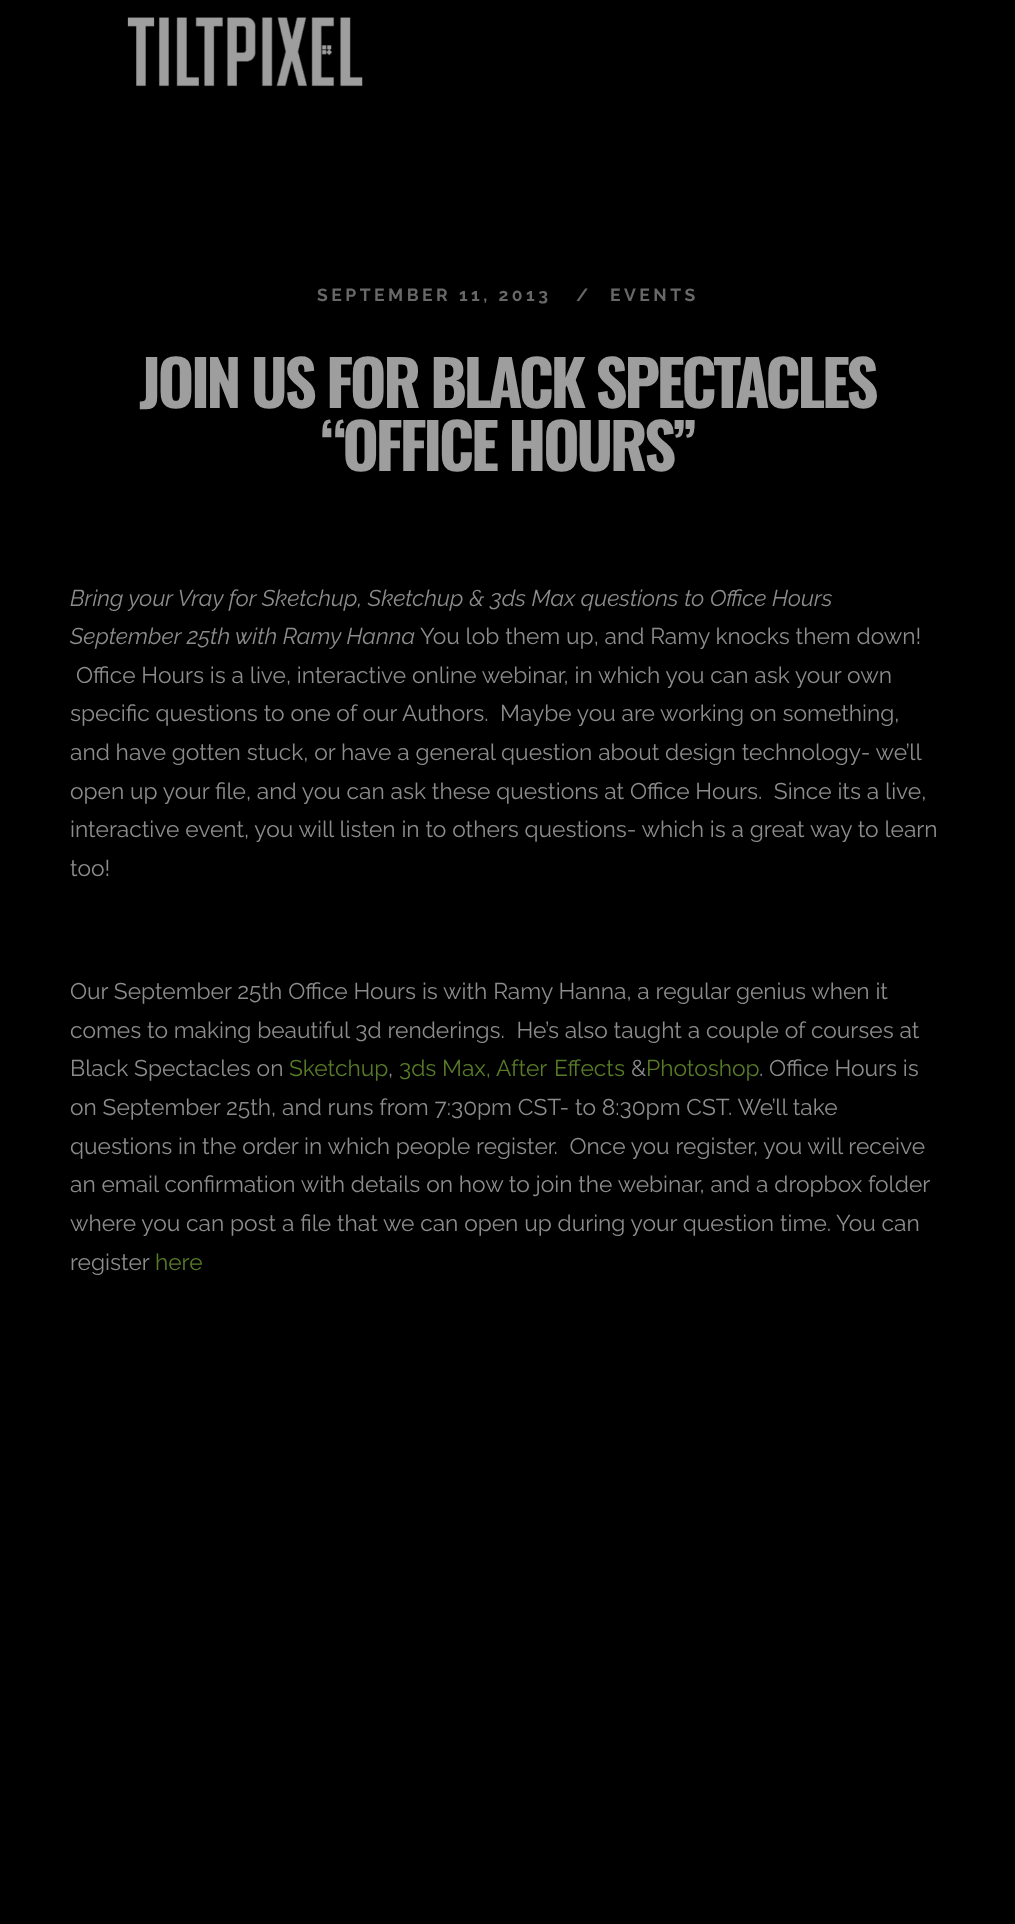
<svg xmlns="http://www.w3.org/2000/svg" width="1015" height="1924">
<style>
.a{font:bold 17.5px Raleway;letter-spacing:3.5px;fill:#686868}
.b{font:bold 63px Oswald;letter-spacing:-3.5px;fill:#9e9e9e}
.c{font:italic 22.75px Raleway;fill:#8c8c8c}
.d{font:22.75px Raleway;fill:#8c8c8c}
.e{font:22.75px Raleway;fill:#587b27}
</style>
<rect width="100%" height="100%" fill="#000"/>
<image href="1.png" x="127" y="17" width="236" height="70"/>
<text class="a" x="317" y="301">SEPTEMBER 11, 2013</text>
<text class="a" x="576" y="301">/</text>
<text class="a" x="610" y="301">EVENTS</text>
<text class="b" x="139" y="408">JOIN US FOR BLACK SPECTACLES</text>
<text class="b" x="321" y="471">“OFFICE HOURS”</text>
<text class="c" x="70" y="606">Bring your Vray for Sketchup, Sketchup &amp; 3ds Max questions to Office Hours</text>
<text class="c" x="70" y="644">September 25th with Ramy Hanna</text>
<text class="d" x="420" y="644">You lob them up, and Ramy knocks them down!</text>
<text class="d" x="76" y="683">Office Hours is a live, interactive online webinar, in which you can ask your own</text>
<text class="d" xml:space="preserve" x="70" y="721">specific questions to one of our Authors.  Maybe you are working on something,</text>
<text class="d" x="70" y="760">and have gotten stuck, or have a general question about design technology- we’ll</text>
<text class="d" xml:space="preserve" x="70" y="799">open up your file, and you can ask these questions at Office Hours.  Since its a live,</text>
<text class="d" x="70" y="837">interactive event, you will listen in to others questions- which is a great way to learn</text>
<text class="d" x="70" y="876">too!</text>
<text class="d" x="70" y="999">Our September 25th Office Hours is with Ramy Hanna, a regular genius when it</text>
<text class="d" xml:space="preserve" x="70" y="1038">comes to making beautiful 3d renderings.  He’s also taught a couple of courses at</text>
<text class="d" x="70" y="1076">Black Spectacles on</text>
<text class="e" x="289" y="1076">Sketchup</text>
<text class="d" x="388" y="1076">,</text>
<text class="e" x="399" y="1076">3ds Max, After</text>
<text class="e" x="554" y="1076">Effects</text>
<text class="d" x="631" y="1076">&amp;</text>
<text class="e" x="646" y="1076">Photoshop</text>
<text class="d" x="759" y="1076">. Office Hours is</text>
<text class="d" x="70" y="1115">on September 25th, and runs from 7:30pm CST- to 8:30pm CST. We’ll take</text>
<text class="d" xml:space="preserve" x="70" y="1154">questions in the order in which people register.  Once you register, you will receive</text>
<text class="d" x="70" y="1192">an email confirmation with details on how to join the webinar, and a dropbox folder</text>
<text class="d" x="70" y="1231">where you can post a file that we can open up during your question time. You can</text>
<text class="d" x="70" y="1270">register</text>
<text class="e" x="155" y="1270">here</text>
</svg>
